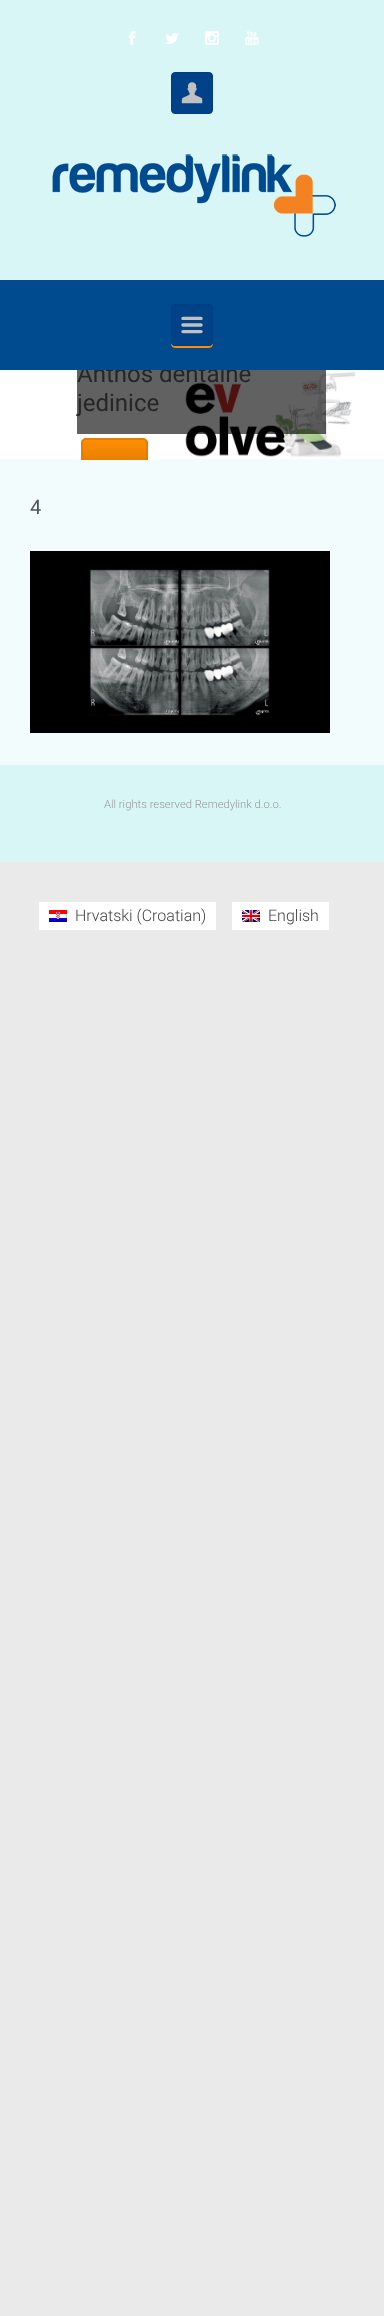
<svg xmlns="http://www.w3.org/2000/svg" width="384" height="2316">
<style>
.a{font:24px Roboto;fill:#262626}
.b{font:20px Roboto;fill:#51545c}
.c{font:300 11.25px Roboto;fill:#999}
.d{font:300 16px Roboto;fill:#444}
</style>
<defs>
<clipPath id="clip1"><rect x="81" y="438" width="67" height="44" rx="5"/></clipPath>
<linearGradient id="g1" gradientUnits="userSpaceOnUse" x1="115" y1="480" x2="115" y2="440"><stop offset="0" stop-color="#d07201"/><stop offset="1" stop-color="#ff8e00"/></linearGradient>
<clipPath id="clip2"><path d="M0 370h384v90H0z"/></clipPath>
</defs>
<rect width="100%" height="100%" fill="#eaeaea"/>
<path fill="#d9f6f6" d="M0 0h384v280H0z"/>
<image href="1.png" x="128" y="31" width="8" height="14"/>
<image href="2.png" x="165" y="33" width="14" height="11"/>
<image href="3.png" x="205" y="31" width="14" height="14"/>
<image href="4.png" x="245" y="31" width="14" height="14"/>
<rect fill="#004287" stroke="#003e83" x="171.5" y="72.5" width="41" height="41" rx="3.5"/>
<image href="5.png" x="181" y="82" width="22" height="22"/>
<image href="6.png" x="52" y="154" width="284" height="83"/>
<path fill="#004a8f" d="M0 280h384v90H0z"/>
<path fill="#ff8e00" d="M171 342c0 7 3 6 10 6h22c7 0 10 1 10-6c0 2-2 4-4 4h-34c-2 0-4-2-4-4z"/>
<rect fill="#004287" stroke="#003e83" x="171.5" y="304.5" width="41" height="41" rx="3.5"/>
<image href="7.png" x="181" y="316" width="22" height="18"/>
<image href="8.png" x="0" y="370" width="384" height="90"/>
<path fill="#0000009e" d="M77 370h249v64H77z"/>
<g clip-path="url(#clip1)">
<path fill="url(#g1)" d="M81 440h67v20H81z"/>
</g>
<path fill="#f2fcfc" d="M0 460h384v305H0z"/>
<g clip-path="url(#clip2)">
<rect fill="none" stroke="#e47e01" stroke-width="2" x="82" y="439" width="65" height="42" rx="4"/>
</g>
<image href="9.png" x="30" y="551" width="300" height="182"/>
<path fill="#d9f6f6" d="M0 765h384v97H0z"/>
<path fill="#fff" d="M39 902h177v28H39z"/>
<image href="10.png" x="49" y="910" width="18" height="12"/>
<path fill="#fff" d="M232 902h97v28H232z"/>
<image href="11.png" x="242" y="910" width="18" height="12"/>
<g clip-path="url(#clip2)">
<text class="a" x="77" y="382">Anthos dentalne</text>
</g>
<text class="a" x="77" y="411">jedinice</text>
<text class="b" x="30" y="514">4</text>
<text class="c" x="104" y="808">All rights reserved Remedylink d.o.o.</text>
<text class="d" x="75" y="921">Hrvatski (Croatian)</text>
<text class="d" x="268" y="921">English</text>
</svg>
